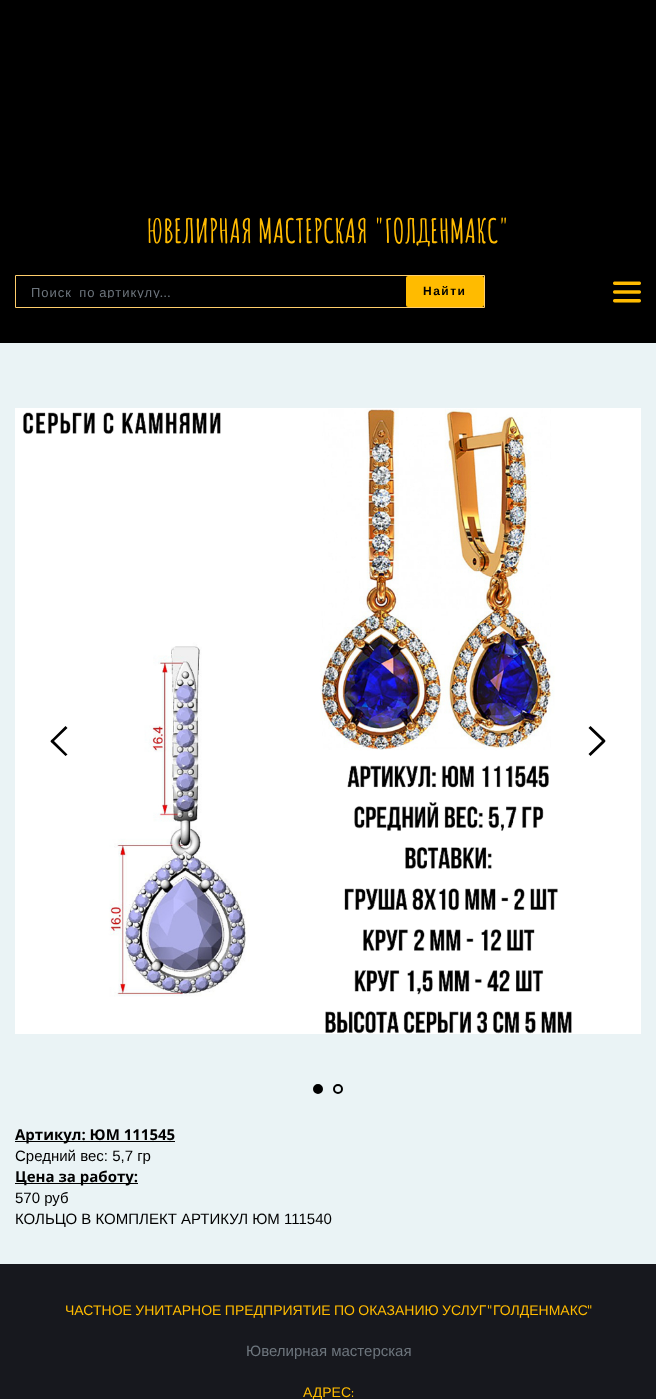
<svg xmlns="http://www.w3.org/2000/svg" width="656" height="1399">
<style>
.a{font:bold 33px Amatic SC;fill:#fb0}
.b{font:13px Liberation Sans;letter-spacing:1px;fill:#6e767e}
.c{font:13px Lato;letter-spacing:1px;fill:#6e767e}
.d{font:bold 12px Liberation Sans;letter-spacing:1.5px;fill:#000}
.e{font:bold 15px Open Sans;fill:#000}
.f{font:15px Liberation Sans;fill:#000}
.g{font:14px Liberation Sans;fill:#fb0}
.h{font:14px Titillium Web;fill:#fb0}
.i{font:15px Liberation Sans;fill:#6e767e}
</style>
<defs>
<clipPath id="clip1"><path d="M31 285h360v13H31z"/></clipPath>
</defs>
<rect width="100%" height="100%" fill="#000"/>
<path fill="none" stroke="#ffce6b" d="M15.5 275.5h469v32H15.5z"/>
<rect fill="#fb0" x="406" y="276" width="78" height="31" rx="2"/>
<image href="1.png" x="613" y="281" width="28" height="22"/>
<path fill="#eaf3f5" d="M0 343h656v921H0z"/>
<image href="2.png" x="15" y="408" width="626" height="626"/>
<path fill="#000" d="M65.5 726l2 2l-13.5 13l13.5 13.5l-2 1.5l-12-11.5c-4-3.5-4-3 0-6.5z"/>
<path fill="#000" d="M590.5 756l-2-2l13.5-13l-13.5-13l2-2l12 11.5c4 4 4 3 0 7z"/>
<circle fill="#000" stroke="#000" stroke-width="2" cx="318" cy="1089" r="4"/>
<circle fill="none" stroke="#000" stroke-width="2" cx="338" cy="1089" r="4"/>
<path fill="#000" d="M15 1141h160v1H15z"/>
<path fill="#000" d="M15 1183h123v1H15z"/>
<path fill="#17181e" d="M0 1264h656v135H0z"/>
<text class="a" x="147" y="243">ЮВЕЛИРНАЯ МАСТЕРСКАЯ "ГОЛДЕНМАКС"</text>
<g clip-path="url(#clip1)">
<text class="b" xml:space="preserve" x="31" y="297" word-spacing="-1">Поиск  по артикулу</text>
</g>
<text class="c" x="160" y="297">...</text>
<text class="d" x="423" y="295">Найти</text>
<text class="e" x="15" y="1140">Артикул: ЮМ 111545</text>
<text class="f" x="15" y="1161">Средний вес: 5,7 гр</text>
<text class="e" x="15" y="1182">Цена за работу:</text>
<text class="f" x="15" y="1203">570 руб</text>
<text class="f" x="15" y="1224">КОЛЬЦО В КОМПЛЕКТ АРТИКУЛ ЮМ 111540</text>
<text class="g" x="65" y="1315" word-spacing="-0.5">ЧАСТНОЕ УНИТАРНОЕ ПРЕДПРИЯТИЕ ПО ОКАЗАНИЮ УСЛУГ</text>
<text class="h" x="487" y="1315">"</text>
<text class="g" x="493" y="1315">ГОЛДЕНМАКС</text>
<text class="h" x="587" y="1315">"</text>
<text class="i" x="246" y="1356">Ювелирная мастерская</text>
<text class="g" x="303" y="1397">АДРЕС</text>
<text class="h" x="351" y="1397">:</text>
</svg>
